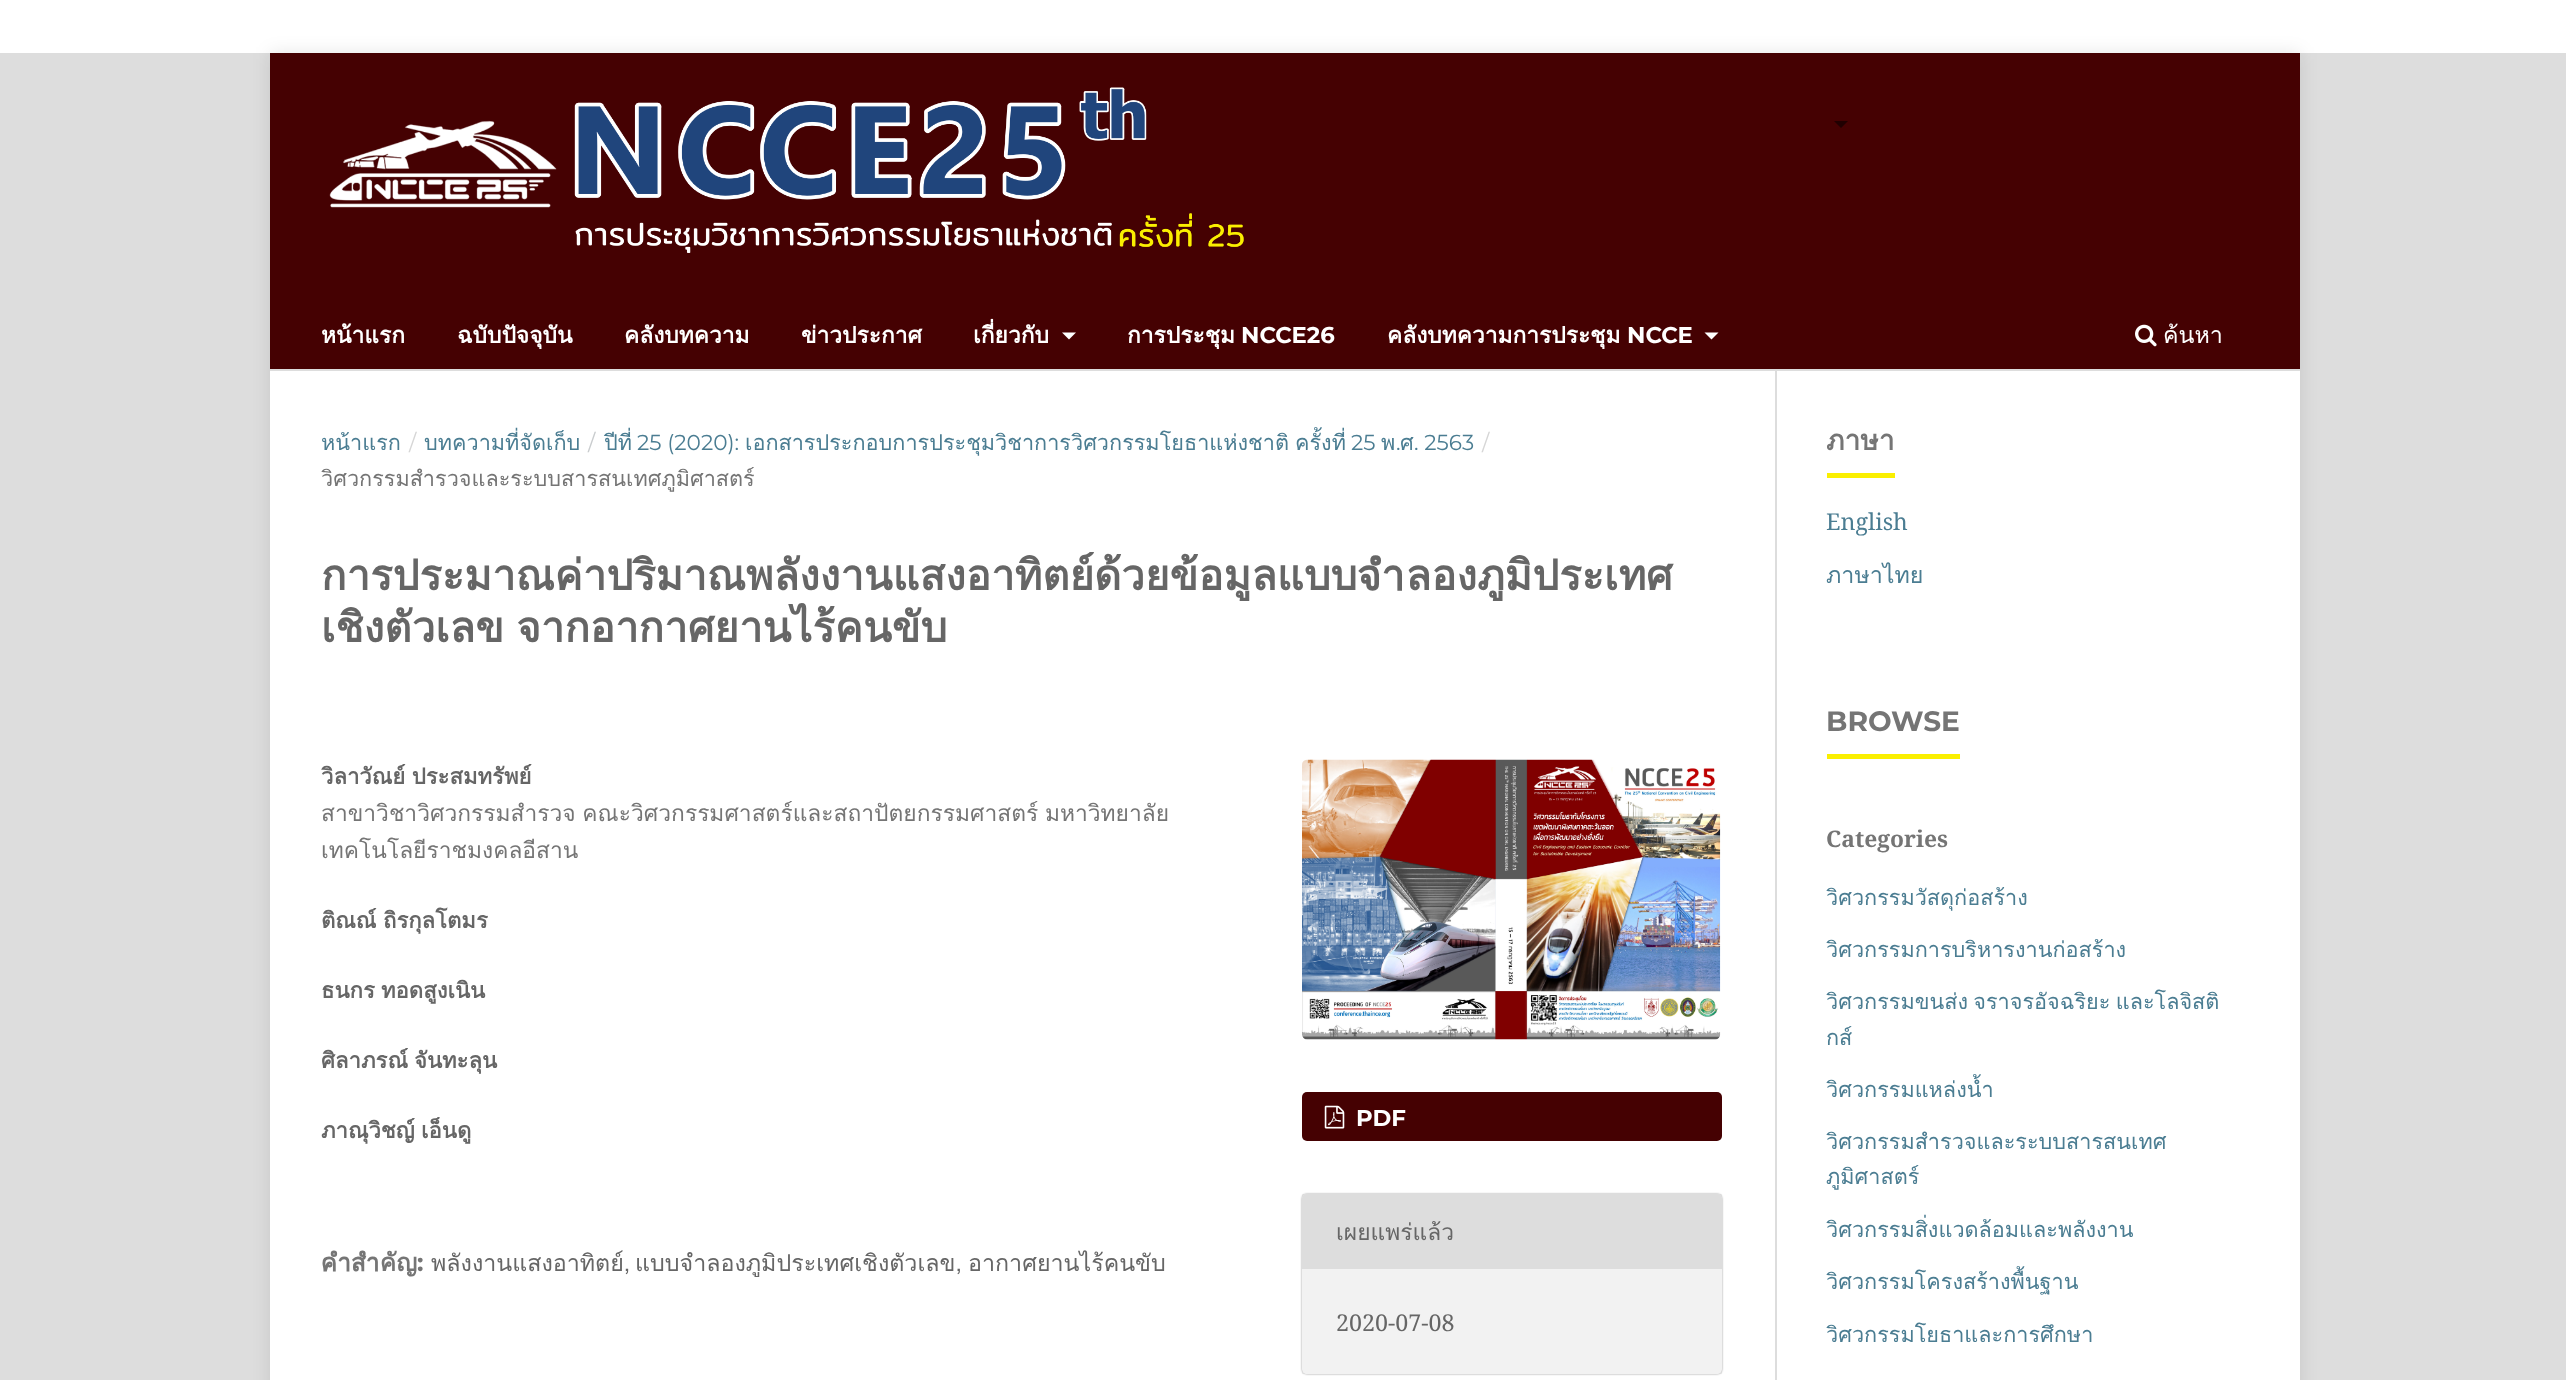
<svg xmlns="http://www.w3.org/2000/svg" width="2566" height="1380">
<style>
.a{font:bold 22.75px Loma;fill:#fff}
.b{font:bold 22.75px Montserrat;fill:#fff}
.c{font:23.25px Loma;fill:#fff}
.d{font:21.65px Loma;fill:#4b7d92}
.e{font:21.65px Montserrat;fill:#d6d6d6}
.f{font:21.65px Montserrat;fill:#c9ccce}
.g{font:21.65px Montserrat;fill:#4b7d92}
.h{font:21.65px Loma;fill:#757575}
.i{font:bold 42px Loma;fill:#666}
.j{font:bold 22.1px Loma;fill:#666}
.k{font:22.8px Loma;fill:#757575}
.l{font:bold 24.5px Loma;fill:#757575}
.m{font:bold 24.5px Montserrat;fill:#757575}
.n{font:23.25px Loma;fill:#666}
.o{font:bold 22.8px Montserrat;fill:#fff}
.p{font:22.8px Loma;fill:#666}
.q{font:23.25px Noto Serif;fill:#666}
.r{font:bold 28px Loma;fill:#757575}
.s{font:23.25px Noto Serif;fill:#4b7d92}
.t{font:23.25px Loma;fill:#4b7d92}
.u{font:bold 28px Montserrat;fill:#757575}
.v{font:bold 22.8px Noto Serif;fill:#757575}
</style>
<defs>
<clipPath id="clip1"><path d="M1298 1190h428v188h-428zm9 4h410c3 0 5 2 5 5v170c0 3-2 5-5 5h-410c-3 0-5-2-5-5v-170c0-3 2-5 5-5z" clip-rule="evenodd"/></clipPath>
</defs>
<rect width="100%" height="100%" fill="#fff"/>
<path fill="#ddd" d="M0 53h2566v1327H0z"/>
<path fill="#0000001a" filter="blur(9px)" d="M270 53h2030v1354H270z"/>
<path fill="#fff" d="M270 371h2030v1009H270z"/>
<path fill="#450102" d="M270 53h2030v316H270z"/>
<path fill="#ddd" d="M270 369h2030v2H270z"/>
<image href="1.png" x="329" y="87" width="915" height="166"/>
<path fill="#200001" d="M1834 121h14l-7 7z"/>
<path fill="#fff" d="M1062 332.5h14l-7 7z"/>
<path fill="#fff" d="M1704.5 332.5h14l-7 7z"/>
<image href="2.png" x="2135" y="324" width="22" height="23"/>
<image href="3.png" x="1302" y="759" width="419" height="281"/>
<rect fill="#450102" x="1302" y="1092" width="420" height="49" rx="5"/>
<image href="4.png" x="1324" y="1105" width="21" height="24"/>
<g clip-path="url(#clip1)">
<rect fill="#00000066" filter="blur(1px)" x="1302" y="1194" width="420" height="180" rx="5"/>
</g>
<path fill="#0000000d" d="M1302 1194h420v180H1302z"/>
<path fill="#ddd" d="M1307 1194h410c3 0 5 2 5 5v70h-420v-70c0-3 2-5 5-5z"/>
<path fill="#ddd" d="M1775 371h2v1009H1775z"/>
<path fill="#faef00" d="M1827 473h68v5H1827z"/>
<path fill="#faef00" d="M1827 754h133v5H1827z"/>
<text class="a" x="321" y="343">หน้าแรก</text>
<text class="a" x="457" y="343">ฉบับปัจจุบัน</text>
<text class="a" x="624" y="343">คลังบทความ</text>
<text class="a" x="801" y="343">ข่าวประกาศ</text>
<text class="a" x="973" y="343">เกี่ยวกับ</text>
<text class="a" x="1127" y="343">การประชุม</text>
<text class="b" x="1241" y="343">NCCE26</text>
<text class="a" x="1387" y="343">คลังบทความการประชุม</text>
<text class="b" x="1627" y="343">NCCE</text>
<text class="c" x="2163" y="343">ค้นหา</text>
<text class="d" x="321" y="450">หน้าแรก</text>
<text class="e" x="409" y="450">/</text>
<text class="d" x="424" y="450">บทความที่จัดเก็บ</text>
<text class="d" x="604" y="450">ปีที่</text>
<text class="f" x="588" y="450">/</text>
<text class="g" x="637" y="450">25 (2020):</text>
<text class="d" x="745" y="450">เอกสารประกอบการประชุมวิชาการวิศวกรรมโยธาแห่งชาติ</text>
<text class="d" x="1295" y="450">ครั้งที่</text>
<text class="g" x="1351" y="450">25</text>
<text class="d" x="1381" y="450">พ</text>
<text class="g" x="1396" y="450">.</text>
<text class="d" x="1400" y="450">ศ</text>
<text class="g" x="1414" y="450">. 2563</text>
<text class="e" x="1482" y="450">/</text>
<text class="h" x="321" y="486">วิศวกรรมสำรวจและระบบสารสนเทศภูมิศาสตร์</text>
<text class="i" x="321" y="590">การประมาณค่าปริมาณพลังงานแสงอาทิตย์ด้วยข้อมูลแบบจำลองภูมิประเทศ</text>
<text class="i" x="321" y="642" word-spacing="-2">เชิงตัวเลข จากอากาศยานไร้คนขับ</text>
<text class="j" x="321" y="784" word-spacing="-1">วิลาวัณย์ ประสมทรัพย์</text>
<text class="k" x="321" y="821" word-spacing="-1">สาขาวิชาวิศวกรรมสำรวจ คณะวิศวกรรมศาสตร์และสถาปัตยกรรมศาสตร์ มหาวิทยาลัย</text>
<text class="k" x="321" y="858">เทคโนโลยีราชมงคลอีสาน</text>
<text class="j" x="321" y="928">ติณณ์</text>
<text class="j" x="383" y="928">ถิรกุลโตมร</text>
<text class="j" x="321" y="998">ธนกร</text>
<text class="j" x="381" y="998">ทอดสูงเนิน</text>
<text class="j" x="321" y="1068">ศิลาภรณ์</text>
<text class="j" x="414" y="1068">จันทะลุน</text>
<text class="j" x="321" y="1138">ภาณุวิชญ์</text>
<text class="j" x="421" y="1138">เอ็นดู</text>
<text class="l" x="321" y="1271">คำสำคัญ</text>
<text class="m" x="417" y="1271">:</text>
<text class="n" x="431" y="1271">พลังงานแสงอาทิตย์,</text>
<text class="n" x="635" y="1271">แบบจำลองภูมิประเทศเชิงตัวเลข,</text>
<text class="n" x="968" y="1271">อากาศยานไร้คนขับ</text>
<text class="o" x="1356" y="1126">PDF</text>
<text class="p" x="1336" y="1240">เผยแพร่แล้ว</text>
<text class="q" x="1336" y="1331">2020-07-08</text>
<text class="r" x="1826" y="450">ภาษา</text>
<text class="s" x="1826" y="530">English</text>
<text class="t" x="1826" y="583">ภาษาไทย</text>
<text class="u" x="1826" y="731">BROWSE</text>
<text class="v" x="1826" y="847">Categories</text>
<text class="d" x="1826" y="905">วิศวกรรมวัสดุก่อสร้าง</text>
<text class="d" x="1826" y="957">วิศวกรรมการบริหารงานก่อสร้าง</text>
<text class="d" x="1826" y="1009" word-spacing="-2">วิศวกรรมขนส่ง จราจรอัจฉริยะ และโลจิสติ</text>
<text class="d" x="1826" y="1045">กส์</text>
<text class="d" x="1826" y="1097">วิศวกรรมแหล่งน้ำ</text>
<text class="d" x="1826" y="1149">วิศวกรรมสำรวจและระบบสารสนเทศ</text>
<text class="d" x="1826" y="1184">ภูมิศาสตร์</text>
<text class="d" x="1826" y="1237">วิศวกรรมสิ่งแวดล้อมและพลังงาน</text>
<text class="d" x="1826" y="1289">วิศวกรรมโครงสร้างพื้นฐาน</text>
<text class="d" x="1826" y="1342">วิศวกรรมโยธาและการศึกษา</text>
</svg>
